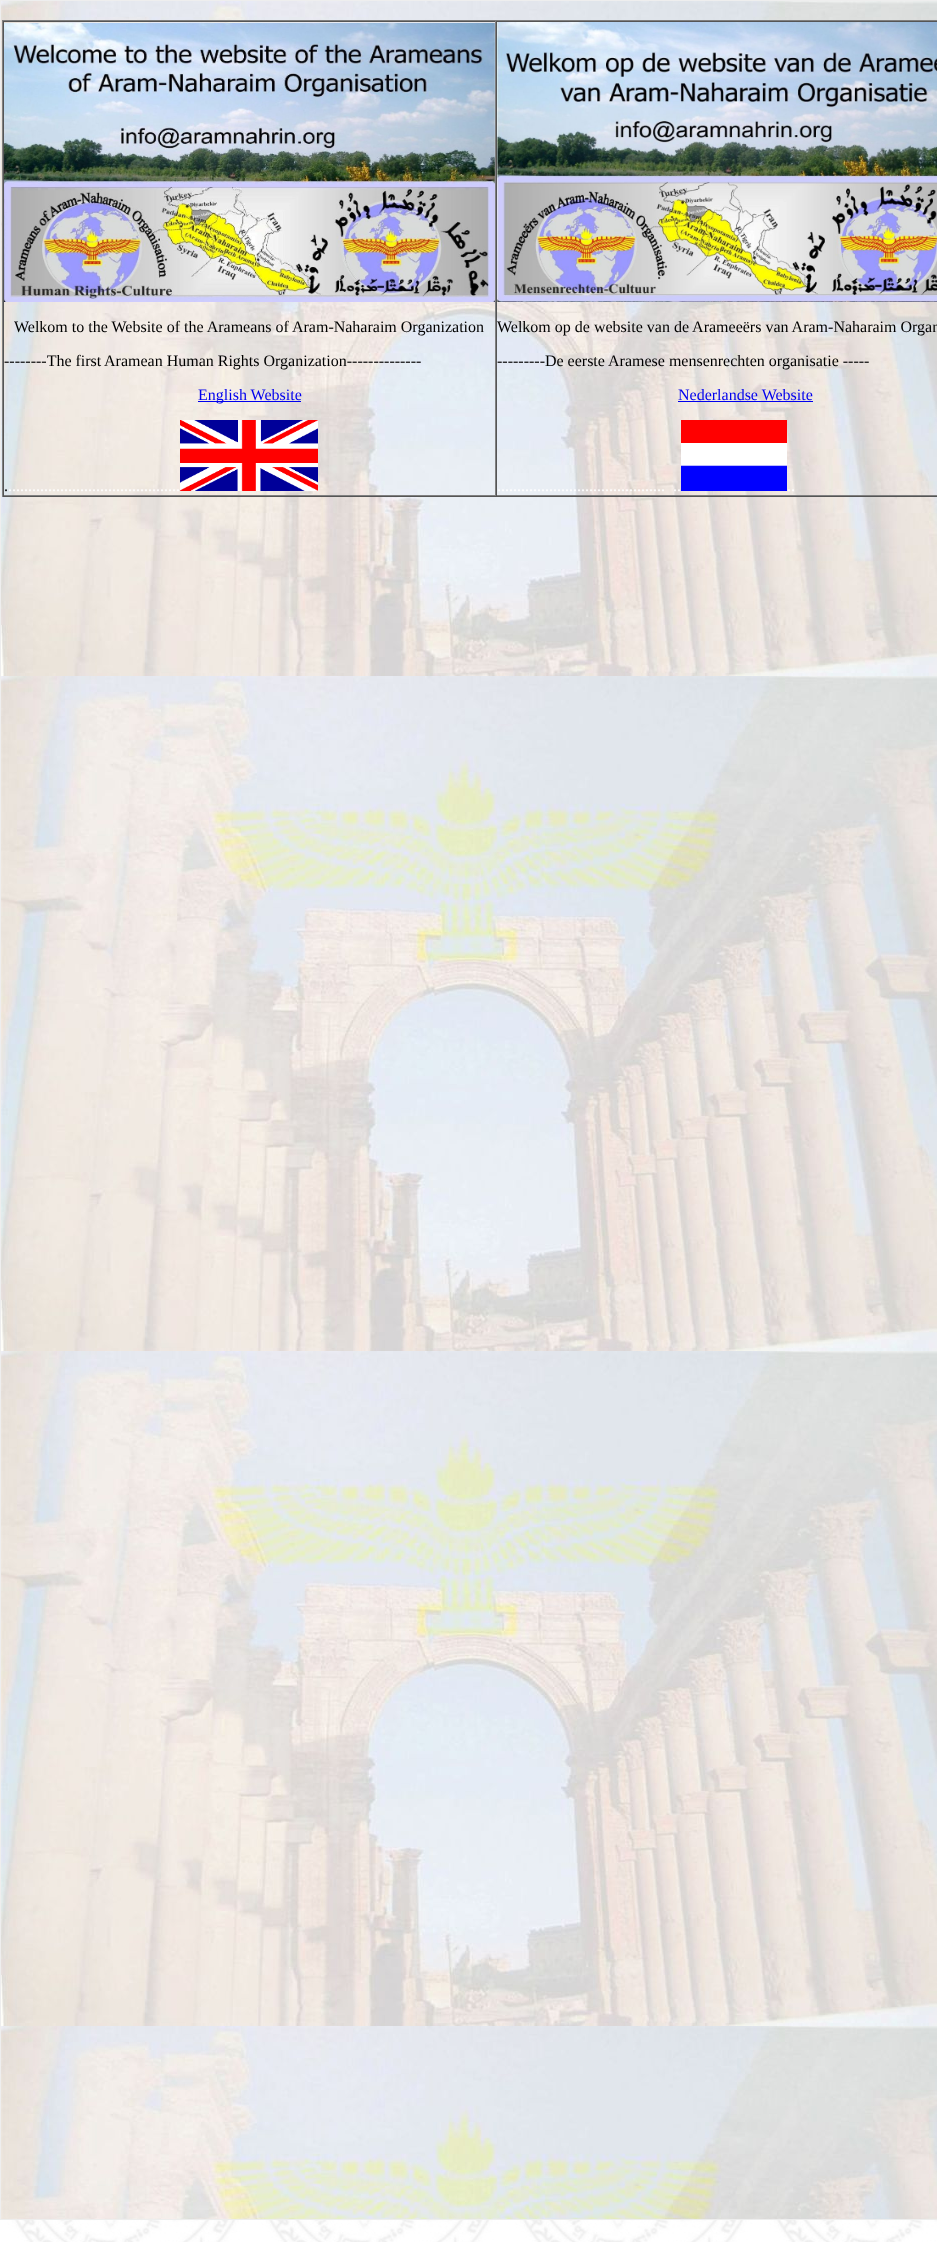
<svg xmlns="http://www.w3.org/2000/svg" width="937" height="2242">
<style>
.a{font:16px Liberation Serif;fill:#000}
.b{font:16px Liberation Serif;fill:#00e}
.c{font:16px Liberation Serif;fill:#fff}
</style>
<rect width="100%" height="100%" fill="#fff"/>
<image href="1.png" x="0" y="2220" width="937" height="22"/>
<path fill="#eee" d="M0 0h937v2220H0z"/>
<image href="2.png" x="1" y="1" width="936" height="2218"/>
<path fill="#808080" d="M2 20h935v1H2z"/>
<path fill="#555" d="M2 496h935v1H2z"/>
<path fill="#808080" d="M2 20h1v477H2z"/>
<path fill="#555" d="M3 21h934v1H3z"/>
<path fill="#808080" d="M495 21h1v475H495z"/>
<path fill="#808080" d="M3 495h934v1H3z"/>
<path fill="#555" d="M3 21h1v475H3z"/>
<image href="3.png" x="4" y="23" width="491" height="279"/>
<path fill="#00e" d="M198 401h103v1H198z"/>
<image href="4.png" x="180" y="420" width="138" height="71"/>
<path fill="#555" d="M496 21h1v475H496z"/>
<image href="5.png" x="497" y="22" width="440" height="280"/>
<path fill="#00e" d="M678 401h135v1H678z"/>
<image href="6.png" x="681" y="420" width="106" height="71"/>
<text class="a" x="14" y="332">Welkom to the Website of the Arameans of Aram-Naharaim Organization</text>
<text class="a" x="4" y="366">--------The first</text>
<text class="a" x="104" y="366">Aramean Human Rights Organization--------------</text>
<text class="b" x="198" y="400">English Website</text>
<text class="a" x="4" y="491">.</text>
<text class="c" x="8" y="491">...........................................</text>
<text class="a" x="497" y="332">Welkom op de website van de Arameeërs van Aram-Naharaim Organ</text>
<text class="a" x="497" y="366">---------De eerste Aramese mensenrechten organisatie -----</text>
<text class="b" x="678" y="400">Nederlandse Website</text>
<text class="c" x="497" y="491">..........................................</text>
<text class="c" x="673" y="491">..</text>
<text class="c" x="787" y="491">..</text>
</svg>
